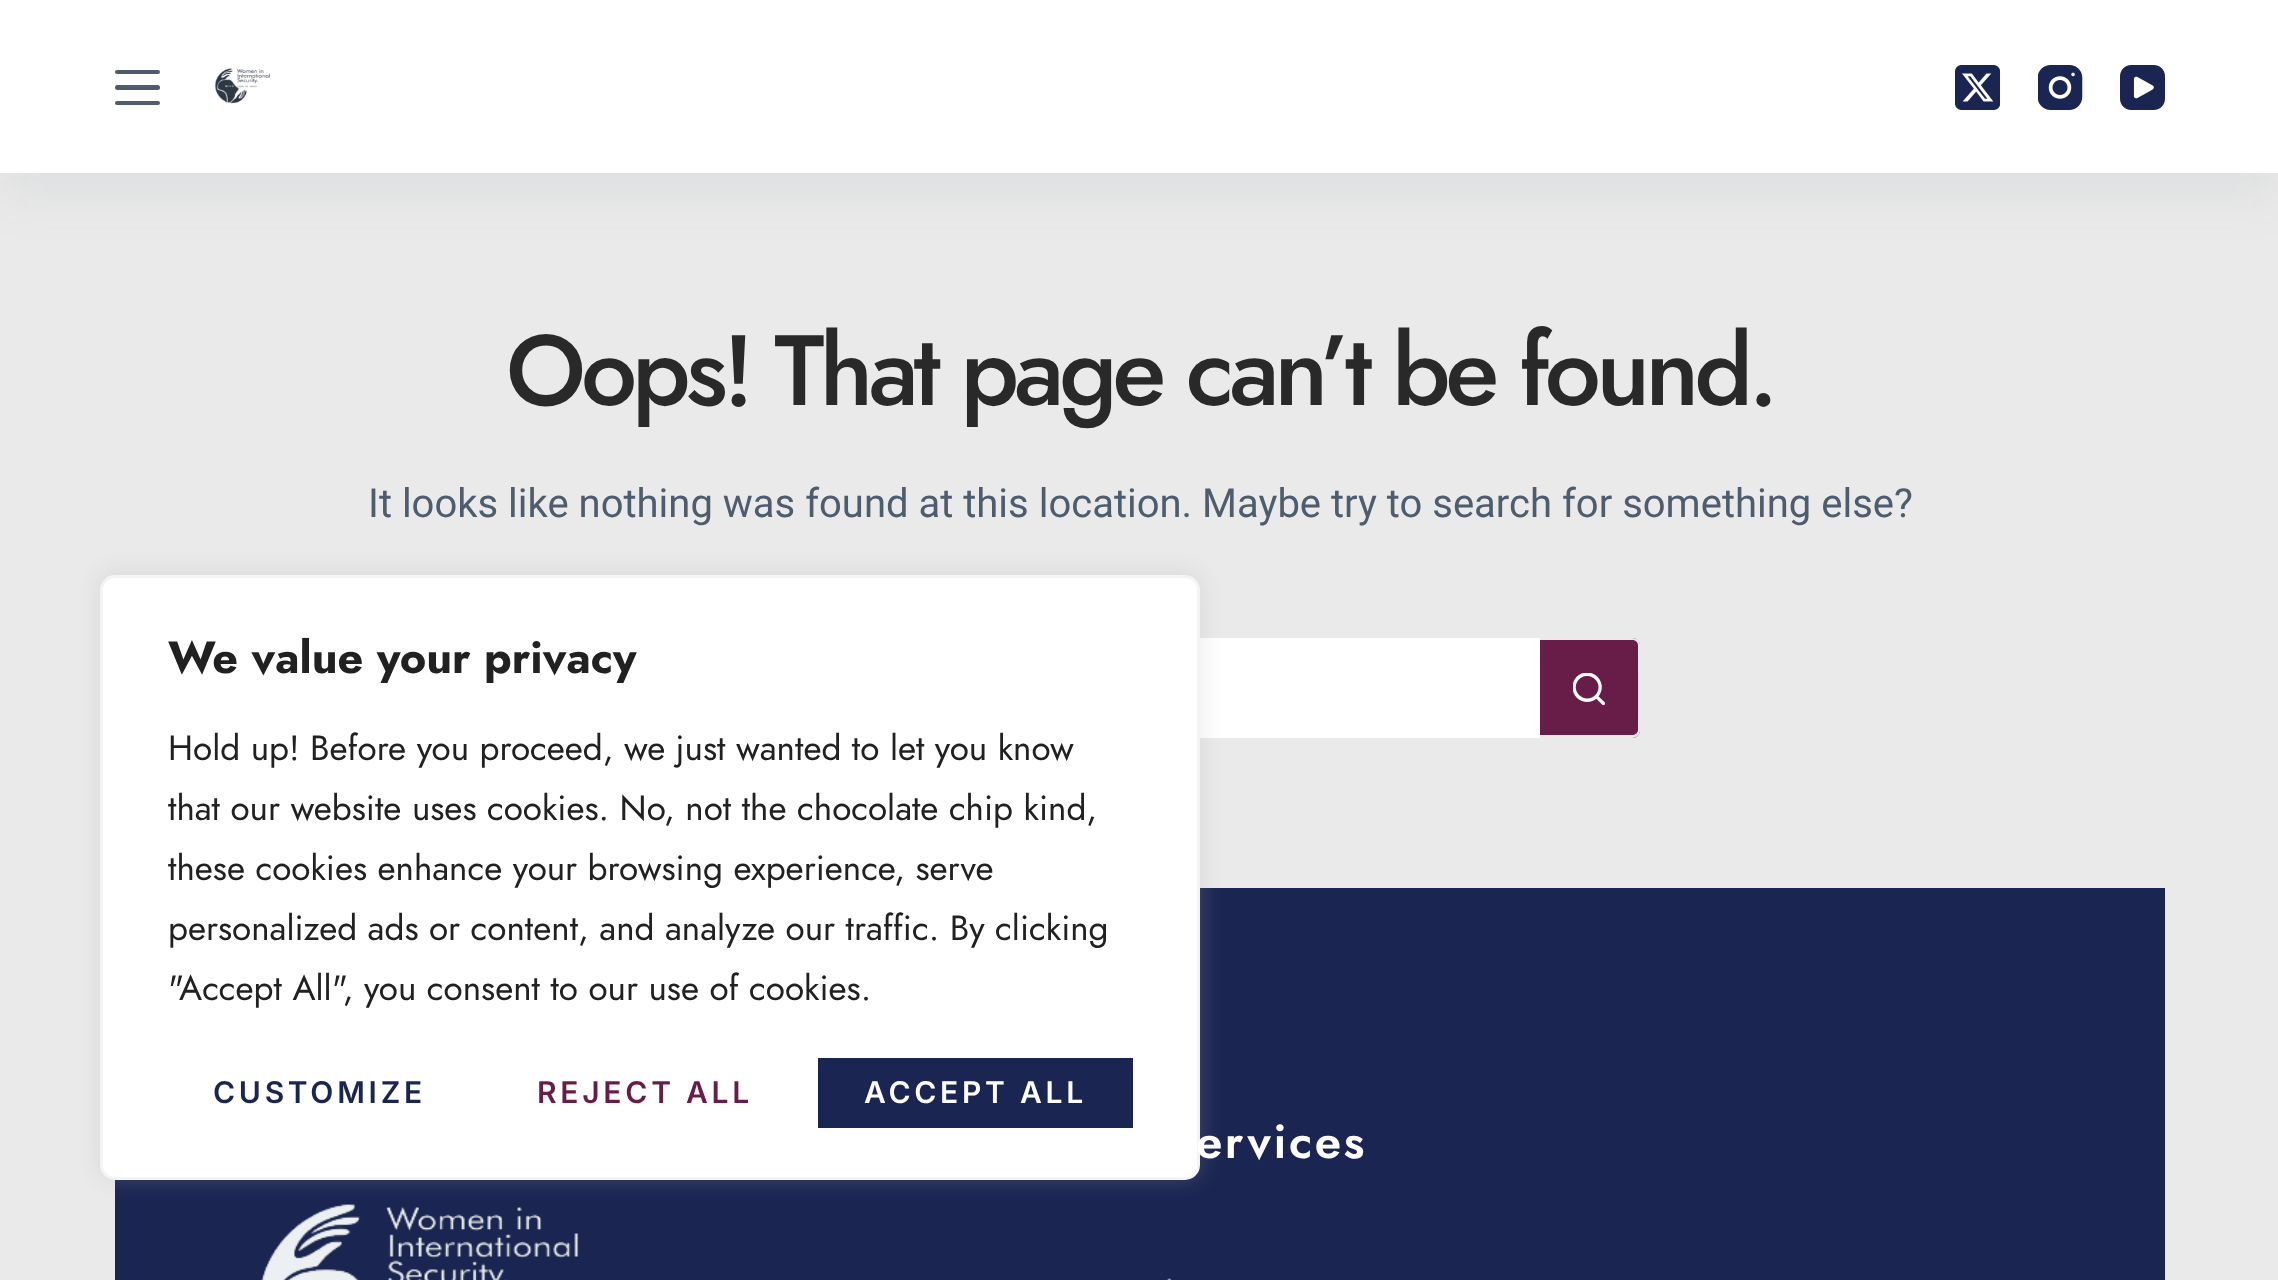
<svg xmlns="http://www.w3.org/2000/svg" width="2278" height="1280">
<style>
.a{font:500 99.5px Jost;letter-spacing:-5px;fill:#292929}
.b{font:40px Roboto;fill:#4d5d6d}
.c{font:600 47.5px Jost;letter-spacing:2.5px;fill:#fff}
.d{font:bold 45px Jost;fill:#212121}
.e{font:35px Jost;fill:#212121}
.f{font:600 30px Inter;letter-spacing:3.75px;fill:#1a2551}
.g{font:600 30px Inter;letter-spacing:3.75px;fill:#681d49}
.h{font:600 30px Inter;letter-spacing:3.75px;fill:#fff}
</style>
<rect width="100%" height="100%" fill="#eaeaea"/>
<path fill="#2b3d500f" filter="blur(25px)" d="M0 25h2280v173H0z"/>
<path fill="#fff" d="M0 0h2278v173H0z"/>
<rect fill="#4d5d6d" x="115" y="70" width="45" height="4" rx="2"/>
<rect fill="#4d5d6d" x="115" y="85" width="45" height="5" rx="2.5"/>
<rect fill="#4d5d6d" x="115" y="101" width="45" height="4" rx="2"/>
<image href="1.png" x="214" y="68" width="56" height="36"/>
<image href="2.png" x="1955" y="65" width="45" height="45"/>
<image href="3.png" x="2038" y="65" width="45" height="45"/>
<image href="4.png" x="2120" y="65" width="45" height="45"/>
<path fill="#fff" d="M1200 638h340v100H1200z"/>
<path fill="#681d49" d="M1540 638h92c4.5 0 8 3.5 8 8v84c0 4.5-3.5 8-8 8h-92z"/>
<path fill="#e7ebee" fill-rule="evenodd" d="M1540 638h92c5 0 8 3 8 7v85c0 4-3 8-8 8h-92zm0 2h92c3 0 6 2 6 5v85c0 3-3 5-6 5h-92z"/>
<image href="5.png" x="1573" y="673" width="32" height="32"/>
<path fill="#1a2551" d="M115 888h2050v392H115z"/>
<image href="6.png" x="1167" y="1278" width="5" height="2"/>
<image href="7.png" x="261" y="1204" width="318" height="76"/>
<rect fill="#acabab4d" filter="blur(12.5px)" x="100" y="573" width="1100" height="605" rx="15"/>
<rect fill="#fff" stroke="#f4f4f4" stroke-width="3" x="101.5" y="576.5" width="1097" height="602" rx="13.5"/>
<path fill="#1a2551" d="M818 1058h315v70H818z"/>
<text class="a" x="506" y="405">Oops! That page can’t be found.</text>
<text class="b" x="368" y="517">It looks like nothing was found at this location. Maybe try to search for something else?</text>
<text class="c" x="1196" y="1158">ervices</text>
<text class="d" x="168" y="673">We value your privacy</text>
<text class="e" x="168" y="760">Hold up! Before you proceed, we just wanted to let you know</text>
<text class="e" x="168" y="820">that our website uses cookies. No, not the chocolate chip kind,</text>
<text class="e" x="168" y="880">these cookies enhance your browsing experience, serve</text>
<text class="e" x="168" y="940">personalized ads or content, and analyze our traffic. By clicking</text>
<text class="e" x="168" y="1000">"Accept All", you consent to our use of cookies.</text>
<text class="f" x="213" y="1103">CUSTOMIZE</text>
<text class="g" x="537" y="1103">REJECT ALL</text>
<text class="h" x="864" y="1103">ACCEPT ALL</text>
</svg>
